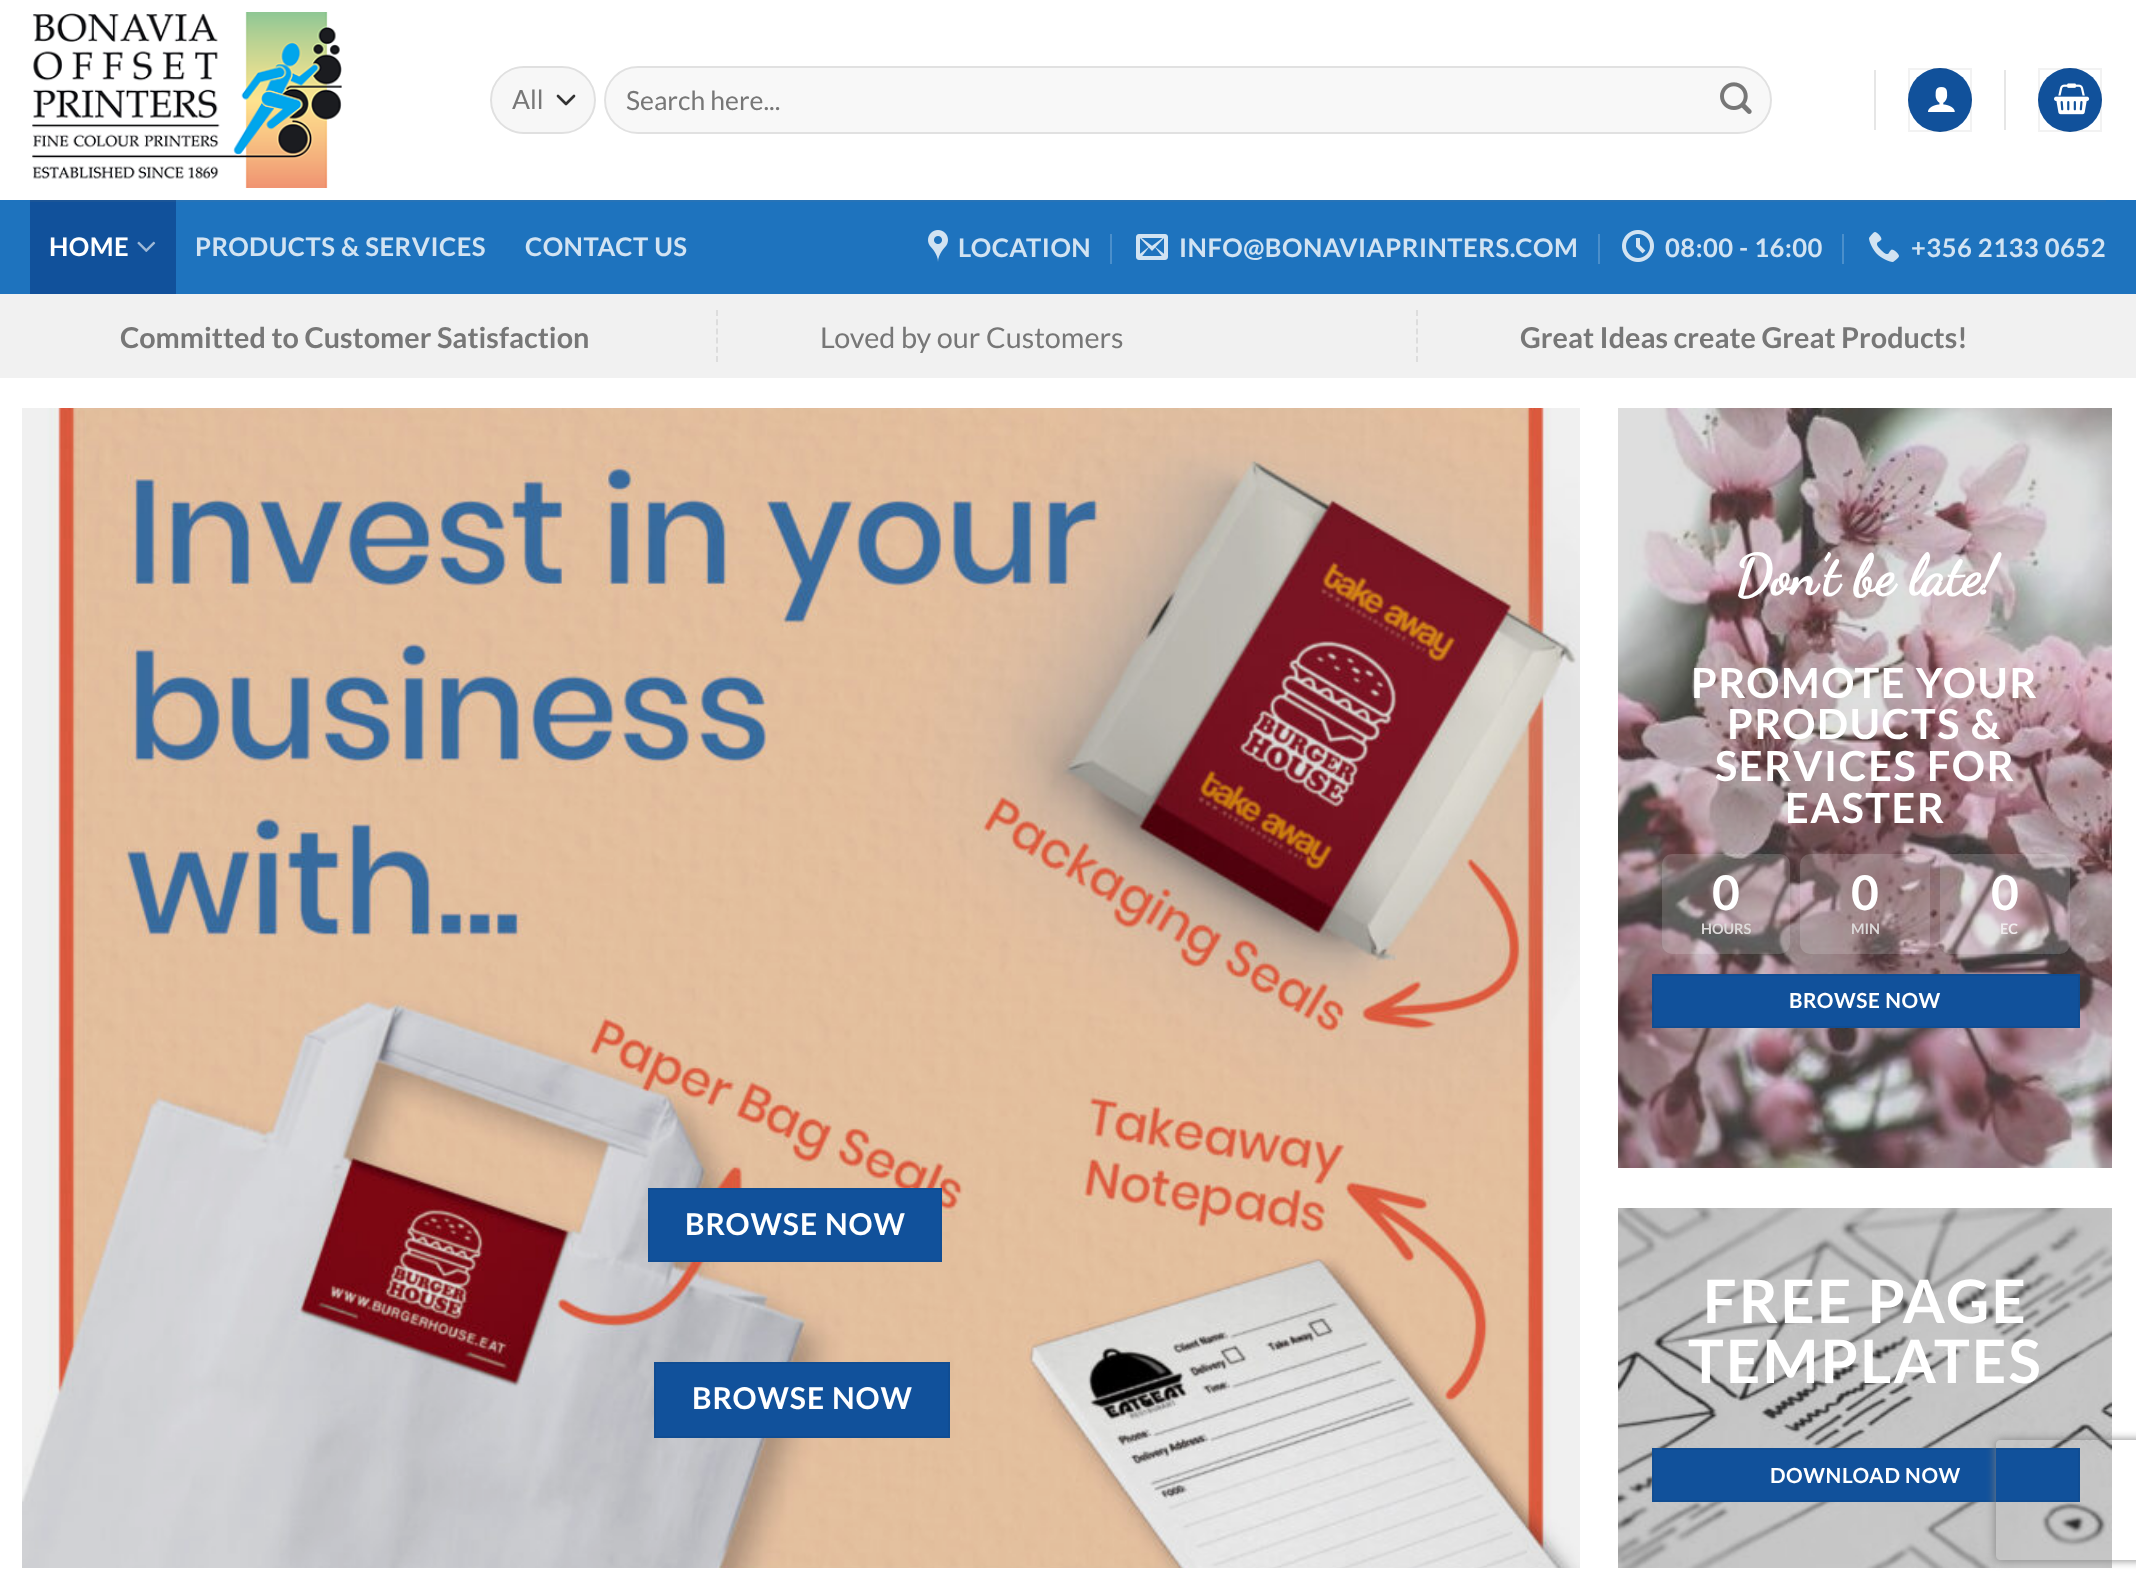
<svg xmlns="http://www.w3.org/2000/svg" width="2136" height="1587">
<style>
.a{font:26.5px Lato;fill:#777}
.b{font:bold 25.6px Lato;letter-spacing:0.5px;fill:#fff}
.c{font:bold 25.6px Lato;letter-spacing:0.5px;fill:#d2e3f2}
.d{font:bold 28.75px Lato;fill:#777}
.e{font:28.75px Lato;fill:#777}
.f{font:bold 56px Dancing Script;fill:#fff}
.g{font:bold 41.5px Lato;letter-spacing:1.6px;fill:#fff}
.h{font:bold 48px Lato;fill:#fff}
.i{font:bold 14.5px Lato;fill:#dddada}
.j{font:bold 14.5px Lato;fill:#f0ecee}
.k{font:bold 20.75px Lato;letter-spacing:0.6px;fill:#fff}
.l{font:bold 30px Lato;letter-spacing:1px;fill:#fff}
.m{font:bold 60px Lato;letter-spacing:2.25px;fill:#fff}
</style>
<defs>
<clipPath id="clip1"><path d="M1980 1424h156v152h-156zm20 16h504c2 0 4 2 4 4v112c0 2-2 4-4 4h-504c-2 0-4-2-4-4v-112c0-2 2-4 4-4z" clip-rule="evenodd"/></clipPath>
</defs>
<rect width="100%" height="100%" fill="#fff"/>
<image href="1.png" x="32" y="12" width="310" height="176"/>
<rect fill="#f7f7f7" x="490" y="66" width="106" height="68" rx="34"/>
<path fill="none" stroke="#333" stroke-width="2.7" stroke-linecap="round" stroke-linejoin="round" d="M558 96l8 8l8-8"/>
<rect fill="none" stroke="#00000017" stroke-width="2" x="491" y="67" width="104" height="66" rx="33"/>
<rect fill="#f8f8f8" x="604" y="66" width="1168" height="68" rx="34"/>
<rect fill="none" stroke="#00000017" stroke-width="2" x="605" y="67" width="1166" height="66" rx="33"/>
<image href="2.png" x="1720" y="82" width="32" height="32"/>
<path fill="#e6e6e6" d="M1874 70h2v60H1874z"/>
<circle fill="#11519b" cx="1940" cy="100" r="32"/>
<path fill="none" stroke="#0000000d" stroke-width="2" d="M1909 69h62v62H1909z"/>
<image href="3.png" x="1928" y="87" width="27" height="25"/>
<path fill="#e6e6e6" d="M2004 70h2v60H2004z"/>
<circle fill="#11519b" cx="2070" cy="100" r="32"/>
<path fill="none" stroke="#0000000d" stroke-width="2" d="M2039 69h62v62H2039z"/>
<image href="4.png" x="2054" y="83" width="36" height="32"/>
<path fill="#1e73be" d="M0 200h2136v94H0z"/>
<path fill="#2773b7" d="M176 200h1930v2H176z"/>
<path fill="#11519b" d="M30 202h146v92H30z"/>
<path fill="#1b5597" d="M30 200h146v2H30z"/>
<image href="5.png" x="137" y="241" width="19" height="11"/>
<image href="6.png" x="928" y="230" width="20" height="32"/>
<path fill="#4b8fcb" d="M1110 234h2v30H1110z"/>
<image href="7.png" x="1136" y="234" width="32" height="26"/>
<path fill="#4b8fcb" d="M1598 234h2v30H1598z"/>
<image href="8.png" x="1622" y="230" width="32" height="32"/>
<path fill="#4b8fcb" d="M1842 234h2v30H1842z"/>
<image href="9.png" x="1869" y="232" width="30" height="30"/>
<path fill="#f1f1f1" d="M0 294h2136v84H0z"/>
<path fill="none" stroke="#ddd" stroke-width="2" stroke-dasharray="6 3.2" d="M717 310v52"/>
<path fill="none" stroke="#ddd" stroke-width="2" stroke-dasharray="6 3.2" d="M1417 310v52"/>
<image href="10.png" x="1618" y="408" width="494" height="760"/>
<rect fill="#ffffff2b" x="1662" y="854" width="128" height="100" rx="10"/>
<rect fill="#ffffff2b" x="1800" y="854" width="130" height="100" rx="10"/>
<rect fill="#ffffff2b" x="1940" y="854" width="130" height="100" rx="10"/>
<path fill="#11519b" stroke="#104d93" stroke-width="2" d="M1653 975h426v52H1653z"/>
<image href="11.png" x="22" y="408" width="1558" height="1160"/>
<path fill="#11519b" stroke="#104d93" stroke-width="2" d="M649 1189h292v72H649z"/>
<path fill="#11519b" stroke="#104d93" stroke-width="2" d="M655 1363h294v74H655z"/>
<image href="12.png" x="1618" y="1208" width="494" height="360"/>
<path fill="#11519b" stroke="#104d93" stroke-width="2" d="M1653 1449h426v52H1653z"/>
<g clip-path="url(#clip1)">
<rect fill="#808080" filter="blur(5px)" x="1996" y="1440" width="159" height="120" rx="4"/>
</g>
<text class="a" x="512" y="109">All</text>
<text class="a" x="626" y="110">Search here...</text>
<text class="b" x="49" y="256">HOME</text>
<text class="c" x="195" y="256">PRODUCTS &amp; SERVICES</text>
<text class="c" x="525" y="256">CONTACT US</text>
<text class="c" x="958" y="257">LOCATION</text>
<text class="c" x="1179" y="257">INFO@BONAVIAPRINTERS.COM</text>
<text class="c" x="1665" y="257">08:00 - 16:00</text>
<text class="c" x="1911" y="257">+356 2133 0652</text>
<text class="d" x="120" y="348">Committed to Customer Satisfaction</text>
<text class="e" x="820" y="348">Loved by our Customers</text>
<text class="d" x="1520" y="348">Great Ideas create Great Products!</text>
<text class="f" x="1735" y="594">Don’t be late!</text>
<text class="g" x="1691" y="698">PROMOTE YOUR</text>
<text class="g" x="1727" y="739">PRODUCTS &amp;</text>
<text class="g" x="1715" y="781">SERVICES FOR</text>
<text class="g" x="1785" y="823">EASTER</text>
<text class="h" x="1712" y="910">0</text>
<text class="i" x="1701" y="934">HOURS</text>
<text class="h" x="1851" y="910">0</text>
<text class="i" x="1851" y="934">MIN</text>
<text class="h" x="1991" y="910">0</text>
<text class="j" x="2000" y="934">EC</text>
<text class="k" x="1789" y="1008">BROWSE NOW</text>
<text class="l" x="685" y="1235">BROWSE NOW</text>
<text class="l" x="692" y="1409">BROWSE NOW</text>
<text class="m" x="1703" y="1323">FREE PAGE</text>
<text class="m" x="1688" y="1383">TEMPLATES</text>
<text class="k" x="1770" y="1483">DOWNLOAD NOW</text>
</svg>
